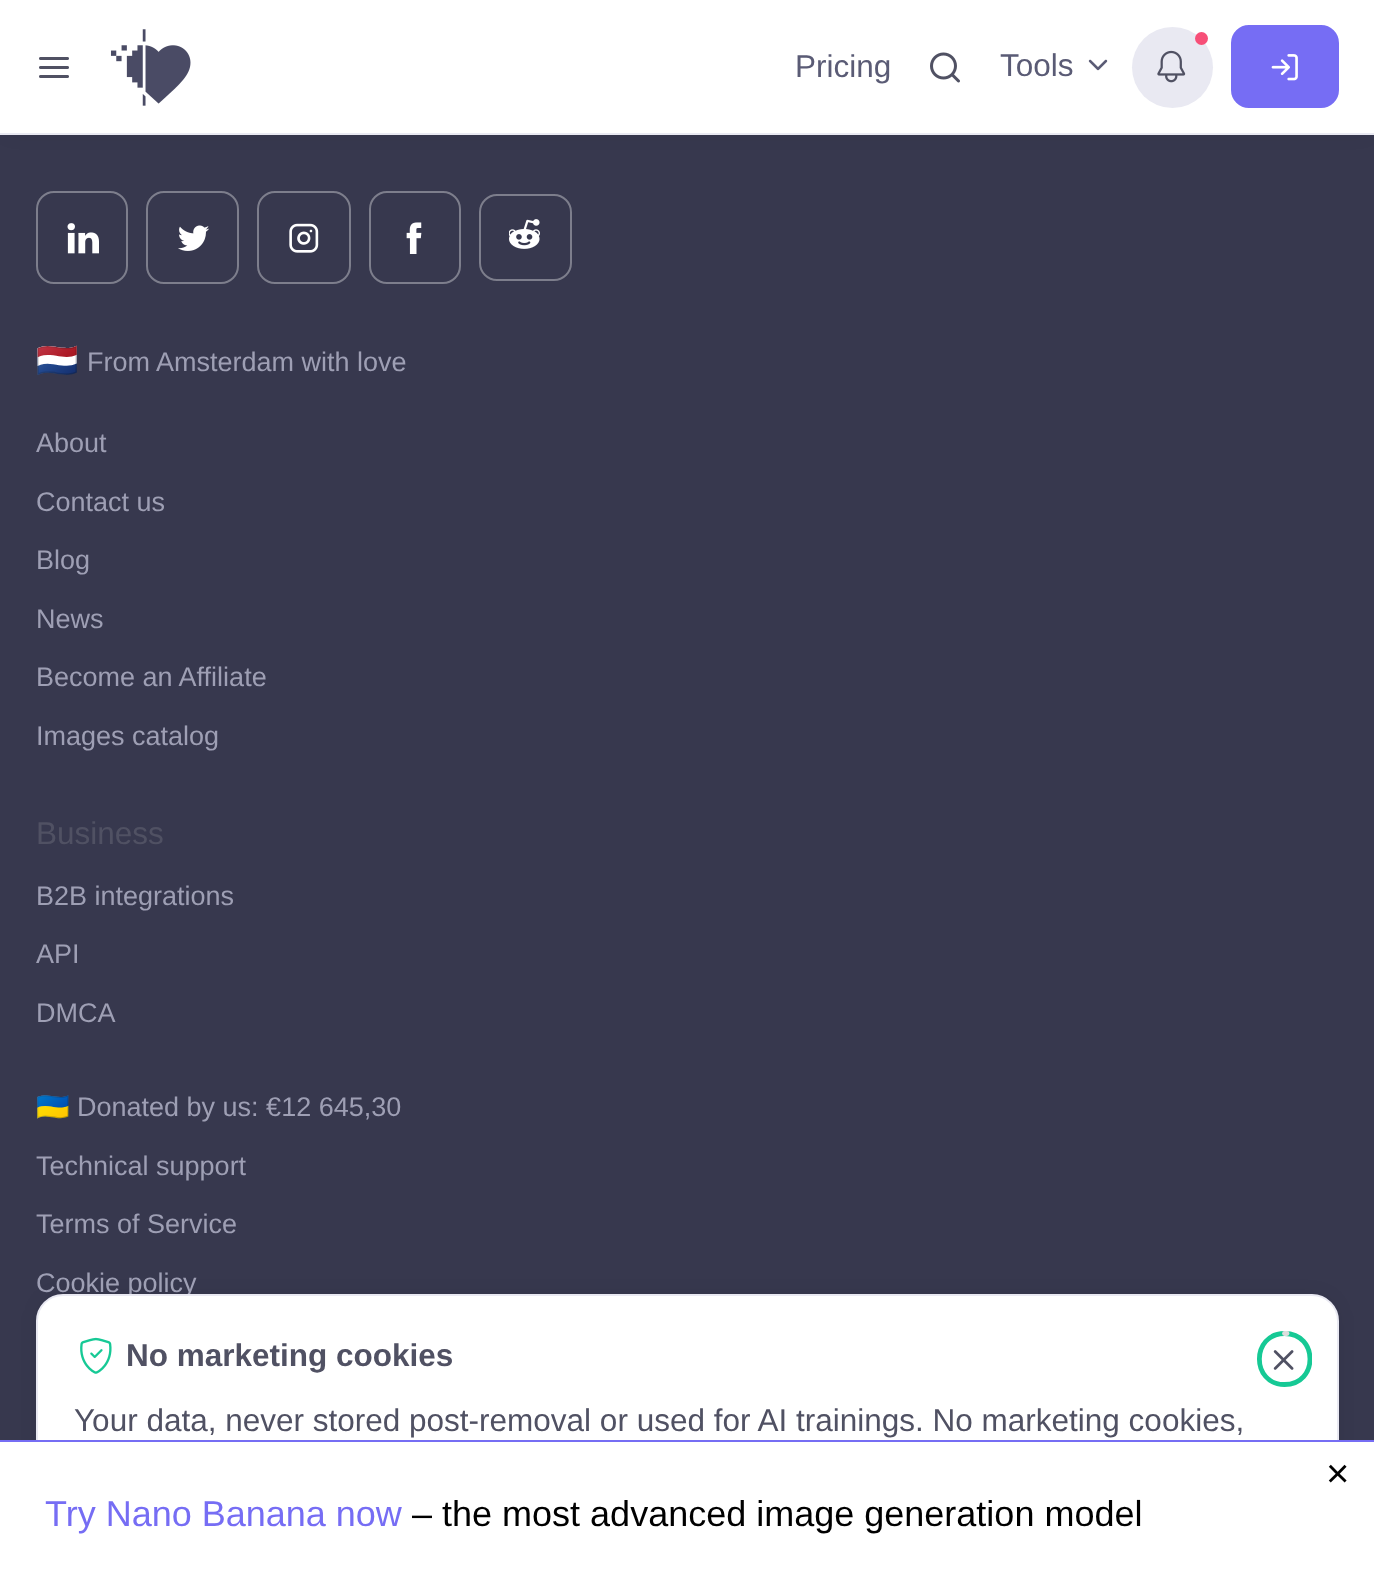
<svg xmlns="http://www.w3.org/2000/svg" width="1374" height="1584">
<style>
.a{font:31.5px Liberation Sans;fill:#5a5b75}
.b{font:34px Noto Color Emoji;fill:#9e9fb4}
.c{font:27px Liberation Sans;fill:#9e9fb4}
.d{font:31.5px Liberation Sans;fill:#505163}
.e{font:27px Noto Color Emoji;fill:#9e9fb4}
.f{font:bold 31.5px Liberation Sans;fill:#505163}
.g{font:40px Liberation Sans;fill:#000}
.h{font:36px Liberation Sans;fill:#766df4}
.i{font:36px Liberation Sans;fill:#000}
</style>
<defs>
<clipPath id="clip1"><path d="M1256 1330h56v58H1256z"/></clipPath>
</defs>
<rect width="100%" height="100%" fill="#37384e"/>
<path fill="#00000021" filter="blur(11px)" d="M7 7h1361v121H7z"/>
<path fill="#fff" d="M0 0h1374v133H0z"/>
<path fill="#e9e9f2" d="M0 133h1374v2H0z"/>
<image href="1.png" x="39" y="57" width="30" height="21"/>
<image href="2.png" x="110" y="29" width="81" height="77"/>
<image href="3.png" x="930" y="52" width="30" height="31"/>
<image href="4.png" x="1088" y="59" width="20" height="12"/>
<circle fill="#e9e9f2" cx="1172.5" cy="67.5" r="40.5"/>
<circle fill="#f74f78" cx="1201.5" cy="38.5" r="6.5"/>
<image href="5.png" x="1157" y="50" width="29" height="33"/>
<rect fill="#766df4" stroke="#766df4" stroke-width="2" x="1232" y="26" width="106" height="81" rx="17"/>
<image href="6.png" x="1271" y="54" width="27" height="27"/>
<rect fill="none" stroke="#7d7e8c" stroke-width="2" x="37" y="192" width="90" height="91" rx="17"/>
<image href="7.png" x="67" y="223" width="32" height="31"/>
<rect fill="none" stroke="#7d7e8c" stroke-width="2" x="147" y="192" width="91" height="91" rx="17"/>
<image href="8.png" x="178" y="225" width="32" height="26"/>
<rect fill="none" stroke="#7d7e8c" stroke-width="2" x="258" y="192" width="92" height="91" rx="17"/>
<image href="9.png" x="289" y="223" width="30" height="30"/>
<rect fill="none" stroke="#7d7e8c" stroke-width="2" x="370" y="192" width="90" height="91" rx="17"/>
<image href="10.png" x="406" y="222" width="16" height="32"/>
<rect fill="none" stroke="#7d7e8c" stroke-width="2" x="480" y="195" width="91" height="85" rx="17"/>
<image href="11.png" x="509" y="219" width="31" height="30"/>
<rect fill="#00000021" filter="blur(11px)" x="43" y="1301" width="1289" height="240" rx="20"/>
<text class="a" x="795" y="77">Pricing</text>
<text class="a" x="1000" y="76">Tools</text>
<text class="b" x="36" y="372">🇳🇱</text>
<text class="c" x="87" y="371">From Amsterdam with love</text>
<text class="c" x="36" y="452">About</text>
<text class="c" x="36" y="511">Contact us</text>
<text class="c" x="36" y="569">Blog</text>
<text class="c" x="36" y="628">News</text>
<text class="c" x="36" y="686">Become an Affiliate</text>
<text class="c" x="36" y="745">Images catalog</text>
<text class="d" x="36" y="844">Business</text>
<text class="c" x="36" y="905">B2B integrations</text>
<text class="c" x="36" y="963">API</text>
<text class="c" x="36" y="1022">DMCA</text>
<text class="e" x="36" y="1116">🇺🇦</text>
<text class="c" x="77" y="1116">Donated by us: €12 645,30</text>
<text class="c" x="36" y="1175">Technical support</text>
<text class="c" x="36" y="1233">Terms of Service</text>
<text class="c" x="36" y="1292">Cookie policy</text>
<rect fill="#fff" stroke="#e9e9f2" stroke-width="2" x="37" y="1295" width="1301" height="252" rx="26"/>
<image href="12.png" x="80" y="1337" width="32" height="37"/>
<text class="f" x="126" y="1366">No marketing cookies</text>
<image href="13.png" x="1273" y="1350" width="21" height="20"/>
<g clip-path="url(#clip1)">
<path fill="none" stroke="#16c995" stroke-width="4.8" d="M1284.5 1333.5c34 0 34 51 0 51c-33.5 0-33.5-51 0-51"/>
</g>
<path fill="none" stroke="#ddd" stroke-width="4.8" stroke-linecap="round" d="M1284.5 1333.5h2.5"/>
<text class="d" x="74" y="1431">Your data, never stored post-removal or used for AI trainings. No marketing cookies,</text>
<path fill="#fff" d="M0 1442h1374v142H0z"/>
<path fill="#766df4" d="M0 1440h1374v2H0z"/>
<text class="g" x="1326" y="1487">×</text>
<text class="h" x="45" y="1526">Try Nano Banana now</text>
<text class="i" x="412" y="1526">– the most advanced image generation model</text>
</svg>
